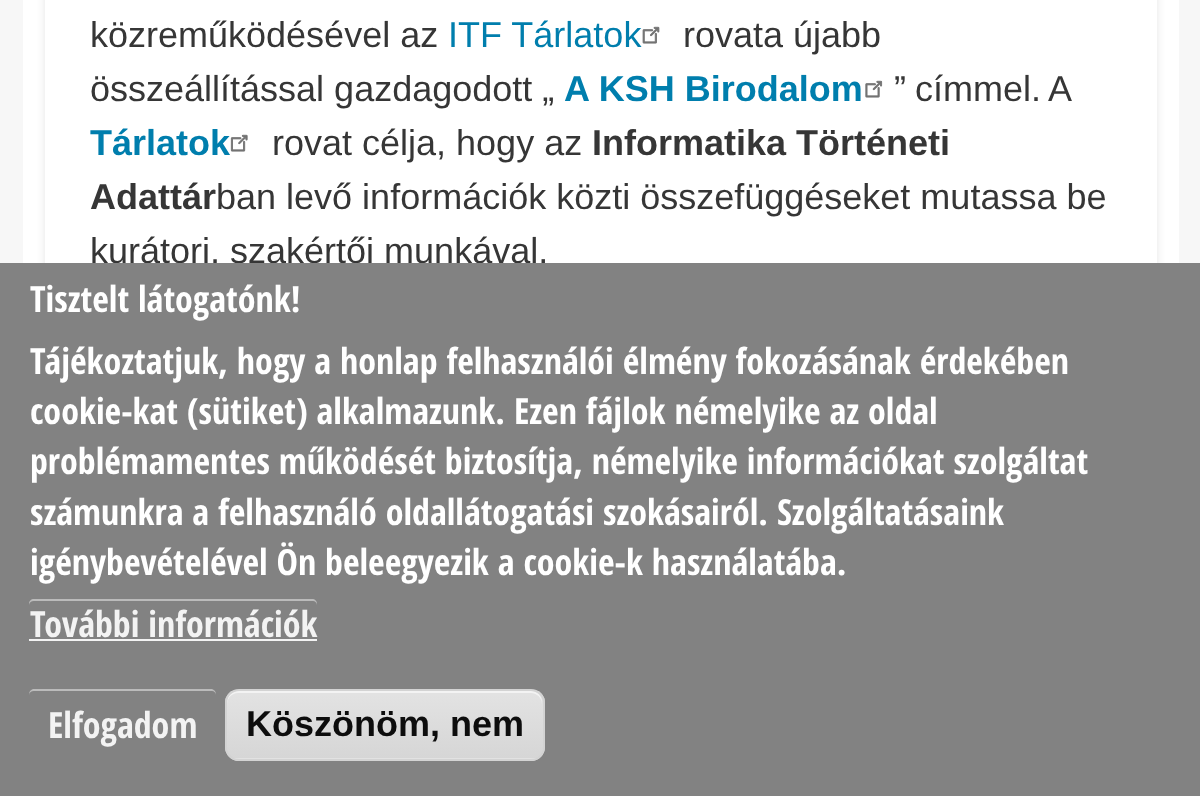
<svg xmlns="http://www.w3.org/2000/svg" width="1200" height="796">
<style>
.a{font:36px Liberation Sans;fill:#363636}
.b{font:36px Liberation Sans;fill:#007ead}
.c{font:bold 36px Liberation Sans;fill:#007ead}
.d{font:bold 36px Liberation Sans;fill:#363636}
.e{font:bold 36px Open Sans Condensed;fill:#fff}
.f{font:bold 36px Open Sans Condensed;fill:#f3f3f3}
.g{font:bold 36px Liberation Sans;fill:#0d0d0d}
</style>
<defs>
<clipPath id="clip1"><rect x="225" y="689" width="320" height="72" rx="14"/></clipPath>
<linearGradient id="g1" gradientUnits="userSpaceOnUse" x1="385" y1="691" x2="385" y2="758"><stop offset="0.05" stop-color="#e2e2e2"/><stop offset="1" stop-color="#d6d6d6"/></linearGradient>
<linearGradient id="g2" gradientUnits="userSpaceOnUse" x1="385" y1="758" x2="385" y2="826"><stop offset="0.05" stop-color="#e2e2e2"/><stop offset="1" stop-color="#d6d6d6"/></linearGradient>
</defs>
<rect width="100%" height="100%" fill="#f7f7f7"/>
<path fill="#fff" d="M23 0h1156v263H23z"/>
<rect fill="#0000001a" filter="blur(4.5px)" x="45" y="-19" width="1112" height="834" rx="5"/>
<path fill="#fff" d="M45 0h1112v263H45z"/>
<image href="1.png" x="642" y="26" width="18" height="18"/>
<image href="2.png" x="865" y="80" width="18" height="18"/>
<text class="a" x="90" y="47">közreműködésével az</text>
<text class="b" x="448" y="47">ITF Tárlatok</text>
<text class="a" x="683" y="47">rovata újabb</text>
<text class="a" x="90" y="101">összeállítással gazdagodott „</text>
<text class="c" x="564" y="101">A KSH Birodalom</text>
<text class="a" x="894" y="101" word-spacing="-1">” címmel. A</text>
<text class="c" x="90" y="155">Tárlatok</text>
<image href="3.png" x="230" y="134" width="18" height="18"/>
<text class="a" x="272" y="155">rovat célja, hogy az</text>
<text class="d" x="592" y="155">Informatika Történeti</text>
<text class="d" x="90" y="209">Adattár</text>
<text class="a" x="216" y="209">ban levő információk közti összefüggéseket mutassa be</text>
<text class="a" x="90" y="263">kurátori, szakértői munkával.</text>
<path fill="#828282" d="M0 263h1200v533H0z"/>
<text class="e" x="30" y="312">Tisztelt látogatónk!</text>
<text class="e" x="30" y="374">Tájékoztatjuk, hogy a honlap felhasználói élmény fokozásának érdekében</text>
<text class="e" x="30" y="424">cookie-kat (sütiket) alkalmazunk. Ezen fájlok némelyike az oldal</text>
<text class="e" x="30" y="474">problémamentes működését biztosítja, némelyike információkat szolgáltat</text>
<text class="e" x="30" y="525">számunkra a felhasználó oldallátogatási szokásairól. Szolgáltatásaink</text>
<text class="e" x="30" y="575">igénybevételével Ön beleegyezik a cookie-k használatába.</text>
<text class="f" x="30" y="637">További információk</text>
<path fill="#bbb" d="M34 601h279c2 0 4 2 4 4v-1c0-3-2-5-5-5h-278c-3 0-5 2-5 5v1c0-2 2-4 5-4z"/>
<path fill="#f3f3f3" d="M29 639h288v2H29z"/>
<path fill="#bbb" d="M34 691h178c2 0 4 2 4 4c0-3-1-5-4-6h-179c-3 1-4 3-4 6c0-2 2-4 5-4z"/>
<text class="f" x="48" y="738">Elfogadom</text>
<g clip-path="url(#clip1)">
<path fill="url(#g1)" d="M225 691h320v67H225z"/>
<path fill="url(#g2)" d="M225 758h320v3H225z"/>
</g>
<path fill="#f3f3f3" d="M238 693h293c6 0 11 5 11 11v-2c0-6-5-11-11-11h-293c-6 0-11 5-11 11v2c0-6 5-11 11-11z"/>
<rect fill="none" stroke="#d3d3d3" stroke-width="2" x="226" y="690" width="318" height="70" rx="13"/>
<text class="g" x="246" y="736">Köszönöm, nem</text>
</svg>
